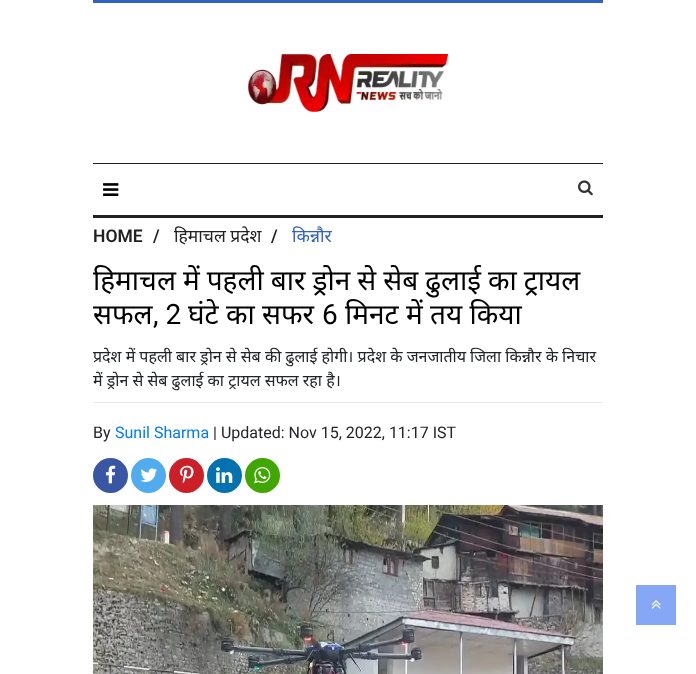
<svg xmlns="http://www.w3.org/2000/svg" width="696" height="674">
<style>
.a{font:600 17.5px Roboto;fill:#212121}
.b{font:17.5px Noto Sans;fill:#212121}
.c{font:17.5px Noto Sans;fill:#3263c0}
.d{font:28px Noto Sans;fill:#000}
.e{font:28px Roboto;fill:#000}
.f{font:italic 16px Noto Sans;fill:#212529}
.g{font:16px Roboto;fill:#212529}
.h{font:16px Roboto;fill:#007bff}
</style>
<rect width="100%" height="100%" fill="#fff"/>
<path fill="#3263c0" d="M93 0h510v3H93z"/>
<path fill="#212121" d="M93 163h510v1H93z"/>
<image href="1.png" x="248" y="54" width="200" height="58"/>
<path fill="#212121" d="M93 215h510v3H93z"/>
<image href="2.png" x="103" y="183" width="16" height="13"/>
<image href="3.png" x="578" y="180" width="15" height="16"/>
<path fill="#e8e8e8" d="M93 402h510v1H93z"/>
<circle fill="#3956a5" cx="110.5" cy="475.5" r="17.5"/>
<image href="4.png" x="106" y="465" width="10" height="19"/>
<circle fill="#51acef" cx="148.5" cy="475.5" r="17.5"/>
<image href="5.png" x="140" y="468" width="17" height="14"/>
<circle fill="#cb2027" cx="186.5" cy="475.5" r="17.5"/>
<image href="6.png" x="180" y="465" width="14" height="19"/>
<circle fill="#0472af" cx="224.5" cy="475.5" r="17.5"/>
<image href="7.png" x="216" y="467" width="17" height="16"/>
<circle fill="#40a600" cx="262.5" cy="475.5" r="17.5"/>
<image href="8.png" x="254" y="467" width="17" height="17"/>
<image href="9.png" x="93" y="505" width="510" height="169"/>
<path fill="#85a7f5" d="M636 585h40v40H636z"/>
<image href="10.png" x="651" y="600" width="10" height="9"/>
<text class="a" x="93" y="242">HOME</text>
<text class="a" x="153" y="242">/</text>
<text class="b" x="174" y="242">हिमाचल प्रदेश</text>
<text class="a" x="271" y="242">/</text>
<text class="c" x="292" y="242">किन्नौर</text>
<text class="d" x="93" y="290" word-spacing="-0.25">हिमाचल में पहली बार ड्रोन से सेब ढुलाई का ट्रायल</text>
<text class="d" x="93" y="324">सफल</text>
<text class="e" x="153" y="324">, 2</text>
<text class="d" x="188" y="324">घंटे का सफर</text>
<text class="e" x="322" y="324">6</text>
<text class="d" x="345" y="324">मिनट में तय किया</text>
<text class="f" x="93" y="362">प्रदेश में पहली बार ड्रोन से सेब की ढुलाई होगी। प्रदेश के जनजातीय जिला किन्नौर के निचार</text>
<text class="f" x="93" y="386">में ड्रोन से सेब ढुलाई का ट्रायल सफल रहा है।</text>
<text class="g" x="93" y="438">By</text>
<text class="h" x="115" y="438">Sunil Sharma</text>
<text class="g" x="213" y="438">| Updated: Nov 15, 2022, 11:17 IST</text>
</svg>
